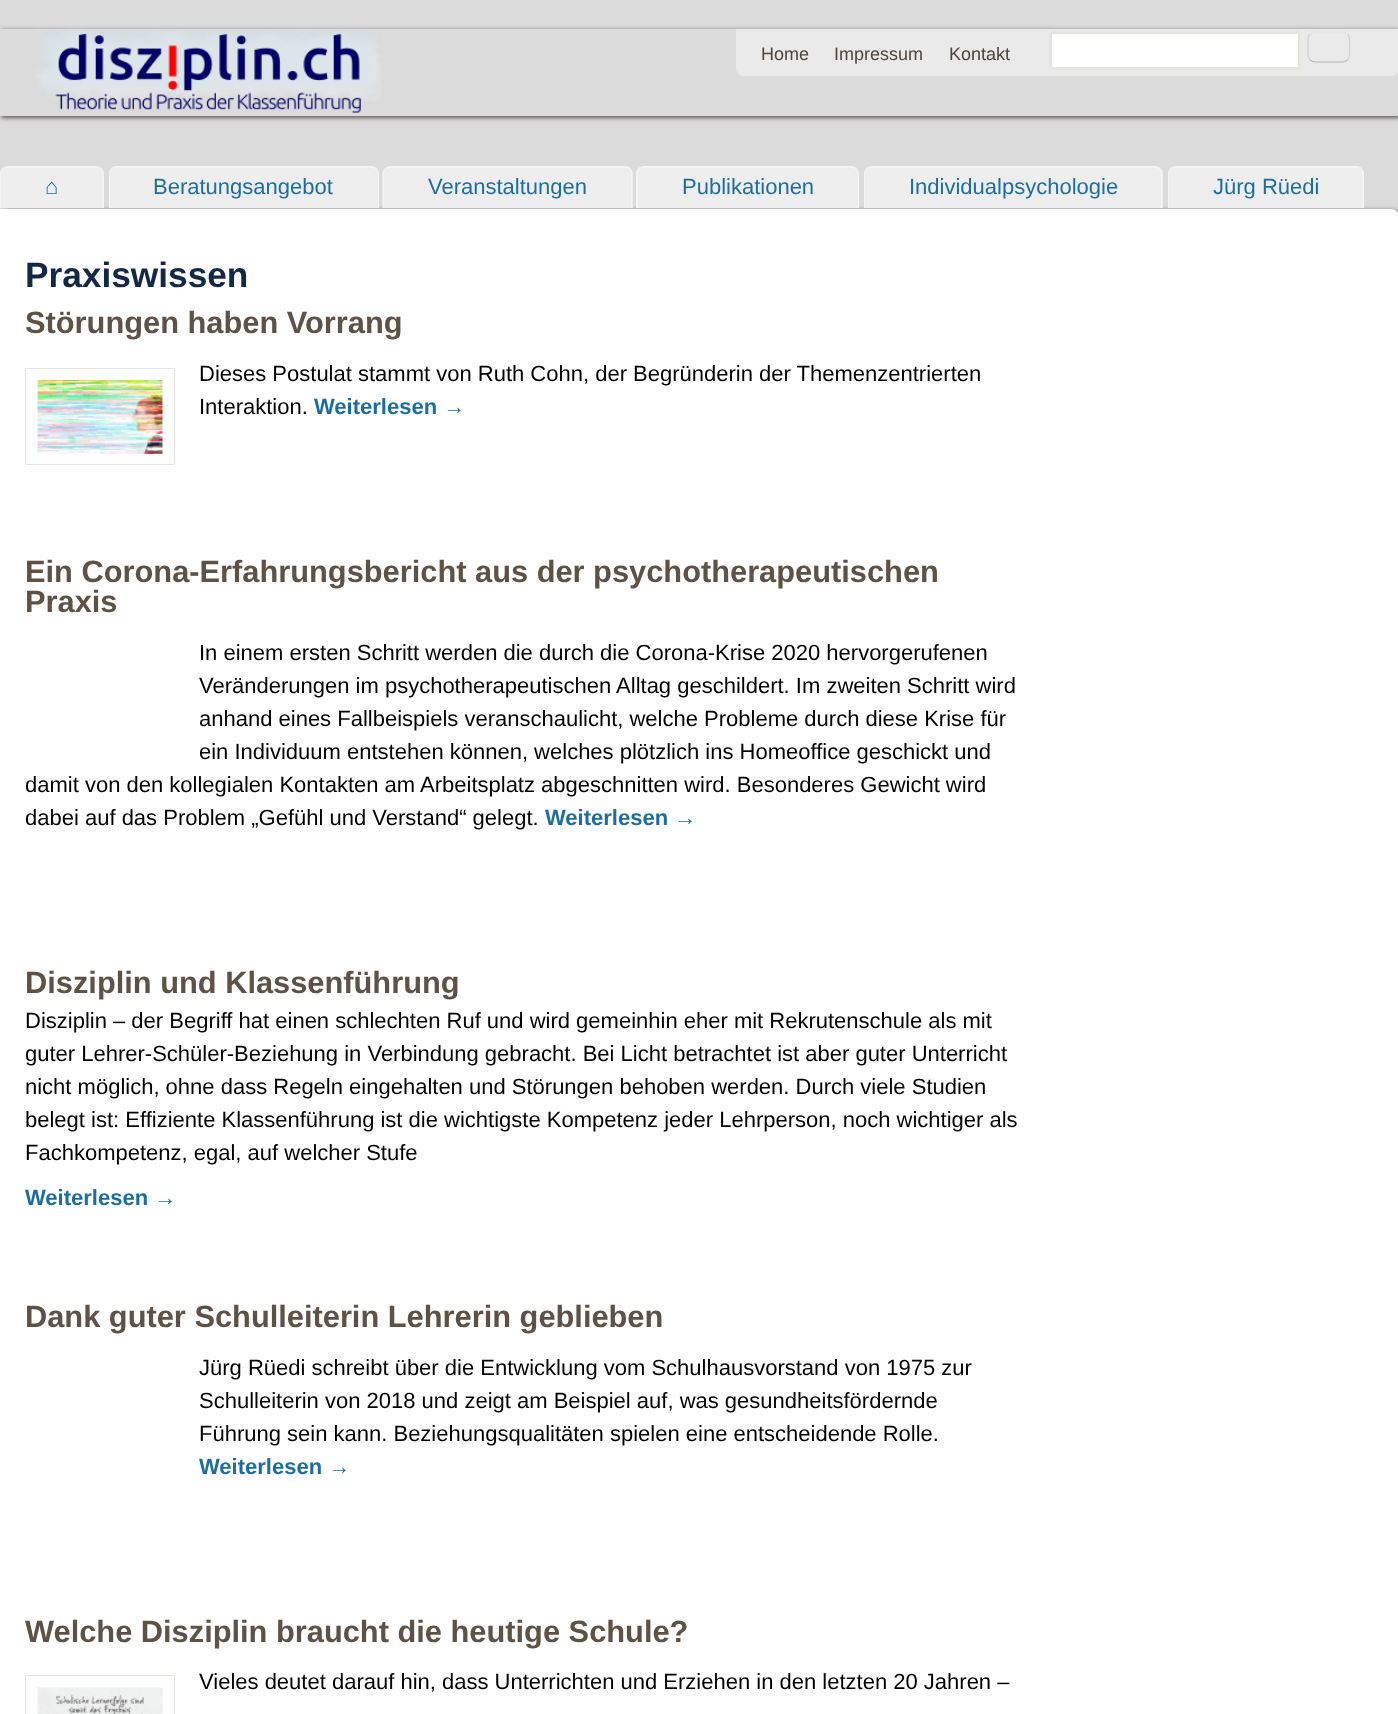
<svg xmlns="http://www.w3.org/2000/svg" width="1398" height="1714">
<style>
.a{font:18px Liberation Sans;fill:#4d453e}
.b{font:22px Liberation Sans;fill:#1c6ea0}
.c{font:bold 35.25px Liberation Sans;fill:#112946}
.d{font:bold 30.8px Liberation Sans;fill:#5e5247}
.e{font:22px Liberation Sans;fill:#000}
.f{font:bold 22px Liberation Sans;fill:#1c6ea0}
</style>
<defs>
<clipPath id="clip1"><path d="M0 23h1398v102h-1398zm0 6h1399v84.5c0 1.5-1 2.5-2.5 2.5h-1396.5z" clip-rule="evenodd"/></clipPath>
</defs>
<rect width="100%" height="100%" fill="#dbdbdb"/>
<g clip-path="url(#clip1)">
<rect fill="#453b3bcc" filter="blur(2px)" x="1" y="30" width="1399" height="88" rx="2.5"/>
</g>
<path fill="#eaeaea" d="M736 29h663v39c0 4.5-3.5 8-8 8h-647c-4.5 0-8-3.5-8-8z"/>
<rect fill="#fff" stroke="#e6e4de" stroke-width="3" x="1050.5" y="32.5" width="249" height="36" rx="2.5"/>
<path fill="none" stroke="#e4e4e4" stroke-width="1.2" d="M1310 34c1.5-1.5 3-2 5-2h27.5c2 0 3.5 .5 5 2"/>
<path fill="none" stroke="#d2d2d2" stroke-width="1.2" d="M1347.5 34c3 3 2 9 2 13c0 4 1 9.5-2 13"/>
<path fill="none" stroke="#b4b4b4" stroke-width="1.2" d="M1347.5 60c-1.5 1-3 2-5 2h-27.5c-2 0-3.5-1-5-2"/>
<path fill="none" stroke="#d2d2d2" stroke-width="1.2" d="M1310 60c-3-3.5-2-9-2-13c0-4-1-10 2-13"/>
<image href="1.png" x="35" y="27" width="347" height="86"/>
<rect fill="#453b3bcc" filter="blur(2px)" x="1" y="210" width="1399" height="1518" rx="8"/>
<path fill="#eee" d="M8 166h88c4.5 0 8 3.5 8 8v34h-104v-34c0-4.5 3.5-8 8-8z"/>
<path fill="#fafafa7a" fill-rule="evenodd" d="M8 166h88c4 0 8 4 8 8v34h-104v-34c0-4 3-8 8-8zm0 2h88c4 0 6 2 6 6v34h-101v-34c0-4 3-6 7-6z"/>
<path fill="#eee" d="M117 166h254c4.5 0 8 3.5 8 8v34h-270v-34c0-4.5 3.5-8 8-8z"/>
<path fill="#fafafa7a" fill-rule="evenodd" d="M116 166h255c4 0 8 4 8 8v34h-270v-34c0-4 3-8 7-8zm0 2h255c4 0 7 2 7 6v34h-268v-34c0-4 3-6 6-6z"/>
<path fill="#eee" d="M391 166h234c4.5 0 8 3.5 8 8v34h-250v-34c0-4.5 3.5-8 8-8z"/>
<path fill="#fafafa7a" fill-rule="evenodd" d="M390 166h235c4 0 7 4 7 8v34h-250v-34c0-4 4-8 8-8zm0 2h235c3 0 6 2 6 6v34h-247v-34c0-4 3-6 6-6z"/>
<path fill="#eee" d="M644 166h207c4.5 0 8 3.5 8 8v34h-223v-34c0-4.5 3.5-8 8-8z"/>
<path fill="#fafafa7a" fill-rule="evenodd" d="M644 166h207c4 0 8 4 8 8v34h-223v-34c0-4 4-8 8-8zm0 2h207c4 0 7 2 7 6v34h-220v-34c0-4 2-6 6-6z"/>
<path fill="#eee" d="M872 166h283c4.5 0 8 3.5 8 8v34h-299v-34c0-4.5 3.5-8 8-8z"/>
<path fill="#fafafa7a" fill-rule="evenodd" d="M871 166h284c4 0 7 4 7 8v34h-298v-34c0-4 3-8 7-8zm0 2h284c3 0 6 2 6 6v34h-296v-34c0-4 3-6 6-6z"/>
<path fill="#eee" d="M1176 166h180c4.5 0 8 3.5 8 8v34h-196v-34c0-4.5 3.5-8 8-8z"/>
<path fill="#fafafa7a" fill-rule="evenodd" d="M1175 166h181c4 0 8 4 8 8v34h-196v-34c0-4 3-8 7-8zm0 2h181c4 0 6 2 6 6v34h-193v-34c0-4 3-6 6-6z"/>
<path fill="#fff" d="M0 209h1391c4.5 0 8 3.5 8 8v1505h-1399z"/>
<path fill="none" stroke="#e6e4de" d="M25.5 368.5h149v96H25.5z"/>
<image href="2.png" x="37" y="380" width="126" height="74"/>
<path fill="none" stroke="#e6e4de" d="M25.5 1675.5h149v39H25.5z"/>
<image href="3.png" x="37" y="1687" width="126" height="27"/>
<text class="a" x="761" y="60">Home</text>
<text class="a" x="834" y="60">Impressum</text>
<text class="a" x="949" y="60">Kontakt</text>
<text class="b" x="45" y="194">⌂</text>
<text class="b" x="153" y="194">Beratungsangebot</text>
<text class="b" x="428" y="194">Veranstaltungen</text>
<text class="b" x="682" y="194">Publikationen</text>
<text class="b" x="909" y="194">Individualpsychologie</text>
<text class="b" x="1213" y="194">Jürg Rüedi</text>
<text class="c" x="25" y="287">Praxiswissen</text>
<text class="d" x="25" y="333">Störungen haben Vorrang</text>
<text class="e" x="199" y="381">Dieses Postulat stammt von Ruth Cohn, der Begründerin der Themenzentrierten</text>
<text class="e" x="199" y="414">Interaktion.</text>
<text class="f" x="314" y="414">Weiterlesen →</text>
<text class="d" x="25" y="582">Ein Corona-Erfahrungsbericht aus der psychotherapeutischen</text>
<text class="d" x="25" y="612">Praxis</text>
<text class="e" x="199" y="660">In einem ersten Schritt werden die durch die Corona-Krise 2020 hervorgerufenen</text>
<text class="e" x="199" y="693">Veränderungen im psychotherapeutischen Alltag geschildert. Im zweiten Schritt wird</text>
<text class="e" x="199" y="726">anhand eines Fallbeispiels veranschaulicht, welche Probleme durch diese Krise für</text>
<text class="e" x="199" y="759">ein Individuum entstehen können, welches plötzlich ins Homeoffice geschickt und</text>
<text class="e" x="25" y="792">damit von den kollegialen Kontakten am Arbeitsplatz abgeschnitten wird. Besonderes Gewicht wird</text>
<text class="e" x="25" y="825">dabei auf das Problem „Gefühl und Verstand“ gelegt.</text>
<text class="f" x="545" y="825">Weiterlesen →</text>
<text class="d" x="25" y="993">Disziplin und Klassenführung</text>
<text class="e" x="25" y="1028">Disziplin – der Begriff hat einen schlechten Ruf und wird gemeinhin eher mit Rekrutenschule als mit</text>
<text class="e" x="25" y="1061">guter Lehrer-Schüler-Beziehung in Verbindung gebracht. Bei Licht betrachtet ist aber guter Unterricht</text>
<text class="e" x="25" y="1094">nicht möglich, ohne dass Regeln eingehalten und Störungen behoben werden. Durch viele Studien</text>
<text class="e" x="25" y="1127">belegt ist: Effiziente Klassenführung ist die wichtigste Kompetenz jeder Lehrperson, noch wichtiger als</text>
<text class="e" x="25" y="1160">Fachkompetenz, egal, auf welcher Stufe</text>
<text class="f" x="25" y="1205">Weiterlesen →</text>
<text class="d" x="25" y="1327">Dank guter Schulleiterin Lehrerin geblieben</text>
<text class="e" x="199" y="1375">Jürg Rüedi schreibt über die Entwicklung vom Schulhausvorstand von 1975 zur</text>
<text class="e" x="199" y="1408">Schulleiterin von 2018 und zeigt am Beispiel auf, was gesundheitsfördernde</text>
<text class="e" x="199" y="1441">Führung sein kann. Beziehungsqualitäten spielen eine entscheidende Rolle.</text>
<text class="f" x="199" y="1474">Weiterlesen →</text>
<text class="d" x="25" y="1642">Welche Disziplin braucht die heutige Schule?</text>
<text class="e" x="199" y="1689">Vieles deutet darauf hin, dass Unterrichten und Erziehen in den letzten 20 Jahren –</text>
</svg>
